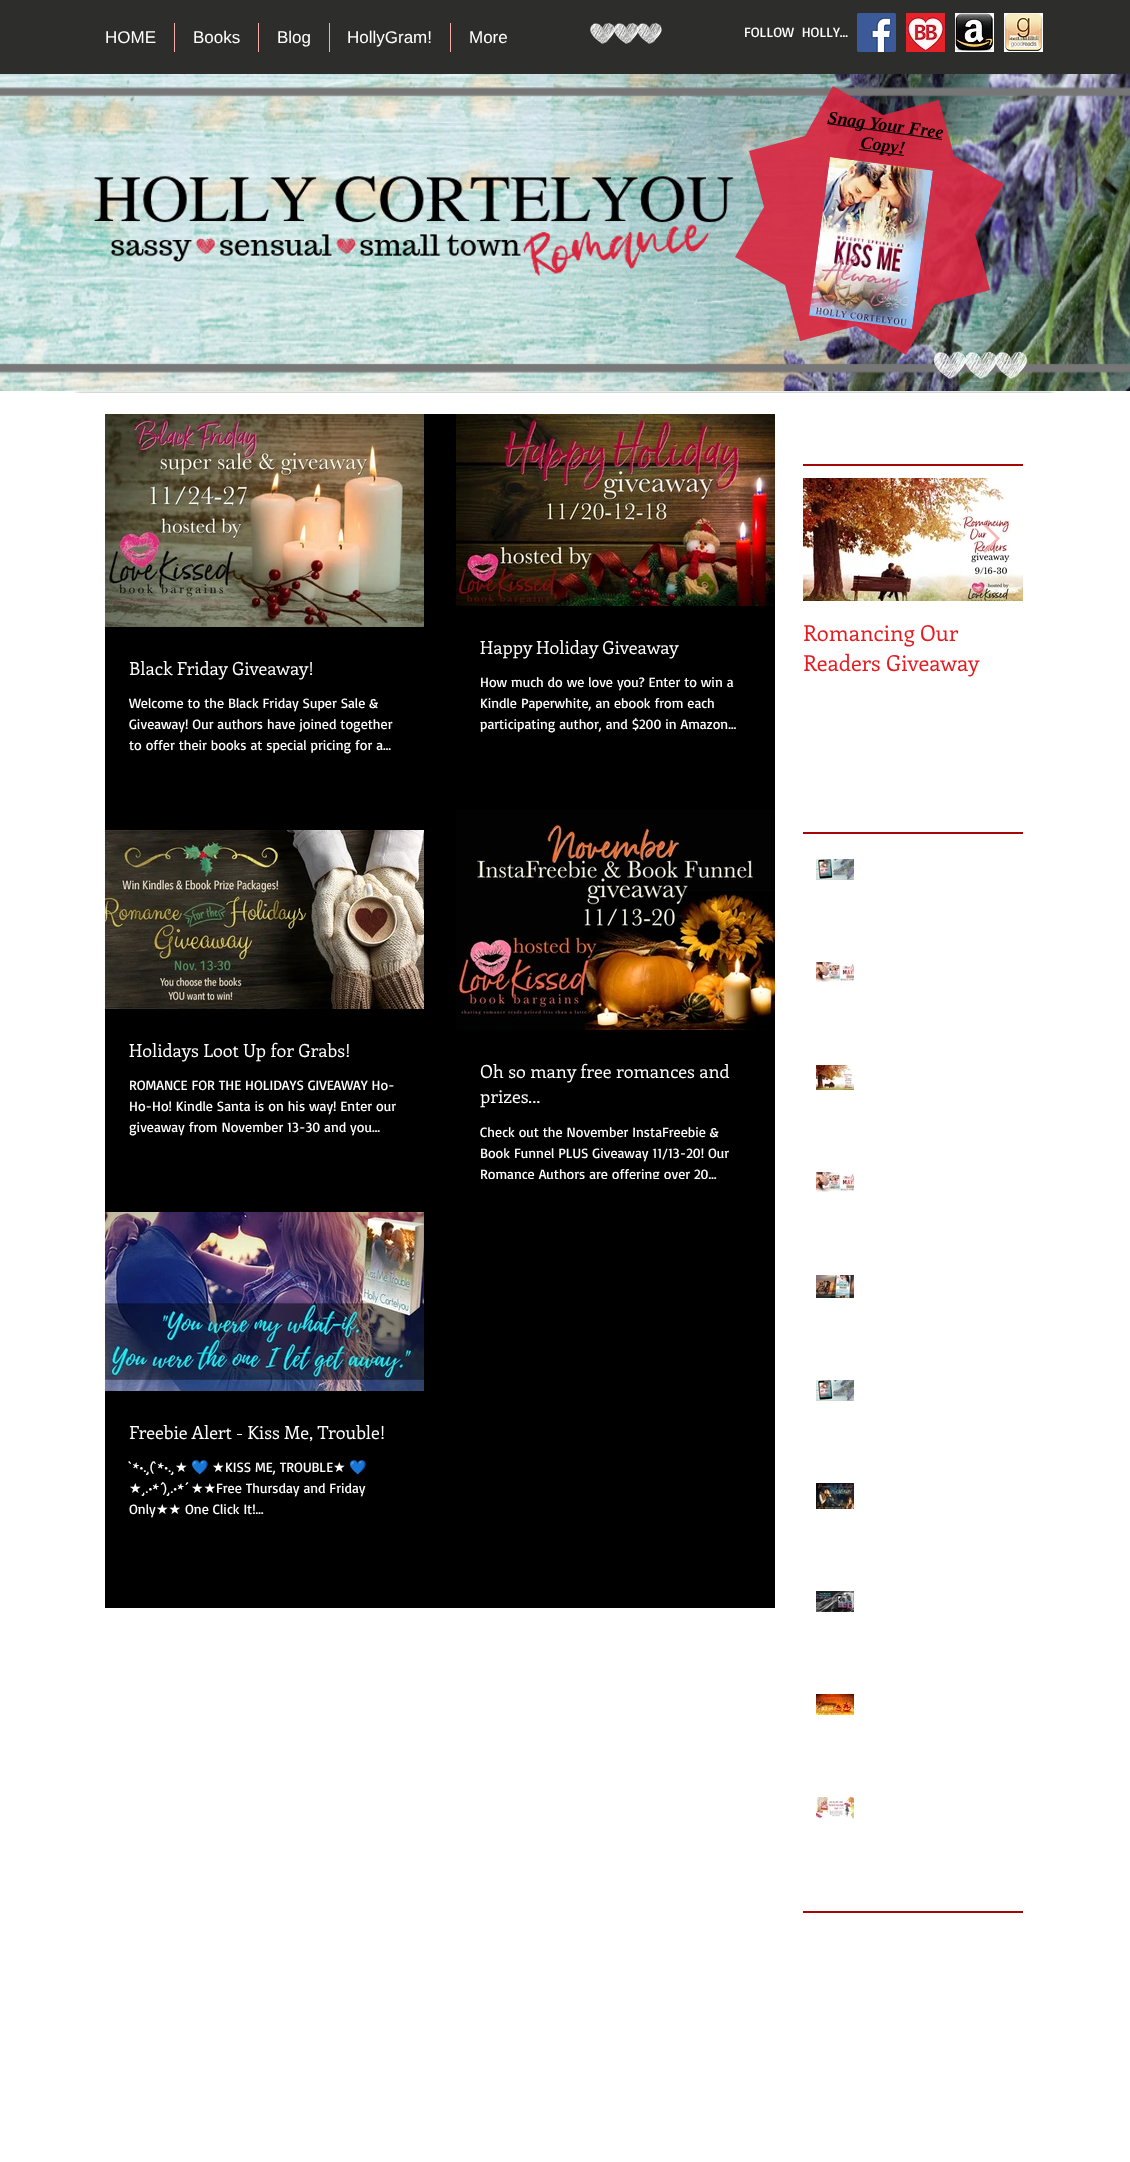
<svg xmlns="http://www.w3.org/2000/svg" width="1130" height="2162">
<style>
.a{font:17px Liberation Sans;fill:#fff}
.b{font:14px Basic;fill:#fff}
.c{font:italic bold 18px Liberation Serif;fill:#000}
.d{font:18px Enriqueta;fill:#fff}
.e{font:14px DejaVu Sans;fill:#fff}
.f{font:14px Noto Color Emoji;fill:#fff}
.g{font:22px Enriqueta;fill:#e21c21}
</style>
<defs>
<clipPath id="clip1"><path d="M480 1121h271v58H480z"/></clipPath>
</defs>
<rect width="100%" height="100%" fill="#fafffc"/>
<path fill="#2d2d2c" d="M0 0h1130v74H0z"/>
<path fill="#fcabab" d="M174 23h1v29H174z"/>
<path fill="#fcabab" d="M258 23h1v29H258z"/>
<path fill="#fcabab" d="M329 23h1v29H329z"/>
<path fill="#fcabab" d="M450 23h1v29H450z"/>
<image href="1.png" x="590" y="23" width="72" height="21"/>
<image href="2.png" x="857" y="13" width="39" height="39"/>
<image href="3.png" x="906" y="13" width="39" height="39"/>
<image href="4.png" x="955" y="13" width="39" height="39"/>
<image href="5.png" x="1004" y="13" width="39" height="39"/>
<image href="6.png" x="0" y="74" width="1130" height="317"/>
<path fill="#da2740e8" fill-rule="evenodd" d="M975 234l29-50l-50-28l-15-56l-56 15l-50-29l-28 50l-56 15l15 56l-29 50l50 28l15 56l56-15l50 29l28-50l56-15z"/>
<path fill="#000" d="M827 123l115 16v1l-115-16z"/>
<path fill="#000" d="M859 149l45 6v1l-45-6z"/>
<image href="7.png" x="94" y="176" width="640" height="100"/>
<image href="8.png" x="809" y="157" width="124" height="172"/>
<image href="9.png" x="933" y="351" width="95" height="28"/>
<rect fill="#00000099" filter="blur(2px)" x="75" y="394" width="980" height="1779" rx="5"/>
<path fill="#fff" d="M0 393h1130v1769H0z"/>
<path fill="#a40606" d="M803 464h220v2H803z"/>
<path fill="#000" d="M105 414h670v1194H105z"/>
<image href="10.png" x="105" y="414" width="319" height="213"/>
<image href="11.png" x="456" y="414" width="319" height="192"/>
<image href="12.png" x="105" y="830" width="319" height="179"/>
<image href="13.png" x="456" y="809" width="319" height="221"/>
<image href="14.png" x="105" y="1212" width="319" height="179"/>
<image href="16.png" x="803" y="478" width="220" height="123"/>
<image href="15.png" x="983" y="525" width="17" height="28"/>
<path fill="#a40606" d="M803 832h220v2H803z"/>
<image href="17.png" x="816" y="859" width="38" height="21"/>
<image href="18.png" x="816" y="962" width="38" height="21"/>
<image href="19.png" x="816" y="1065" width="38" height="25"/>
<image href="18.png" x="816" y="1172" width="38" height="21"/>
<image href="20.png" x="816" y="1275" width="38" height="23"/>
<image href="17.png" x="816" y="1380" width="38" height="21"/>
<image href="21.png" x="816" y="1483" width="38" height="26"/>
<image href="22.png" x="816" y="1591" width="38" height="21"/>
<image href="23.png" x="816" y="1694" width="38" height="21"/>
<image href="24.png" x="816" y="1797" width="38" height="22"/>
<path fill="#a40606" d="M803 1911h220v2H803z"/>
<text class="a" x="105" y="43">HOME</text>
<text class="a" x="193" y="43">Books</text>
<text class="a" x="277" y="43">Blog</text>
<text class="a" x="347" y="43">HollyGram!</text>
<text class="a" x="469" y="43">More</text>
<text class="b" xml:space="preserve" x="744" y="37">FOLLOW  HOLLY...</text>
<text class="c" x="827" y="123" transform="rotate(7.5 827 123)">Snag Your Free</text>
<text class="c" x="860" y="148" transform="rotate(7.5 860 148)">Copy!</text>
<text class="d" x="129" y="675">Black Friday Giveaway!</text>
<text class="b" x="129" y="708">Welcome to the Black Friday Super Sale &amp;</text>
<text class="b" x="129" y="729">Giveaway! Our authors have joined together</text>
<text class="b" x="129" y="750">to offer their books at special pricing for a…</text>
<text class="d" x="480" y="654">Happy Holiday Giveaway</text>
<text class="b" x="480" y="687">How much do we love you? Enter to win a</text>
<text class="b" x="480" y="708">Kindle Paperwhite, an ebook from each</text>
<text class="b" x="480" y="729">participating author, and $200 in Amazon…</text>
<text class="d" x="129" y="1057">Holidays Loot Up for Grabs!</text>
<text class="b" x="129" y="1090">ROMANCE FOR THE HOLIDAYS GIVEAWAY Ho-</text>
<text class="b" x="129" y="1111">Ho-Ho! Kindle Santa is on his way! Enter our</text>
<text class="b" x="129" y="1132">giveaway from November 13-30 and you…</text>
<text class="d" x="480" y="1078">Oh so many free romances and</text>
<text class="d" x="480" y="1103">prizes...</text>
<text class="b" x="480" y="1137">Check out the November InstaFreebie &amp;</text>
<text class="b" x="480" y="1158">Book Funnel PLUS Giveaway 11/13-20! Our</text>
<g clip-path="url(#clip1)">
<text class="b" x="480" y="1179">Romance Authors are offering over 20…</text>
</g>
<text class="d" x="129" y="1439">Freebie Alert - Kiss Me, Trouble!</text>
<text class="b" x="129" y="1472">`*•.¸(`*•.¸</text>
<text class="e" x="175" y="1472">★</text>
<text class="f" x="191" y="1472">💙</text>
<text class="e" x="212" y="1472">★</text>
<text class="b" x="225" y="1472">KISS ME, TROUBLE</text>
<text class="e" x="333" y="1472">★</text>
<text class="f" x="349" y="1472">💙</text>
<text class="e" x="129" y="1493">★</text>
<text class="b" x="142" y="1493">¸.•*´)¸.•*´</text>
<text class="e" x="191" y="1493">★★</text>
<text class="b" x="216" y="1493">Free Thursday and Friday</text>
<text class="b" x="129" y="1514">Only</text>
<text class="e" x="156" y="1514">★★</text>
<text class="b" x="185" y="1514">One Click It!…</text>
<text class="g" x="803" y="641">Romancing Our</text>
<text class="g" x="803" y="671">Readers Giveaway</text>
</svg>
